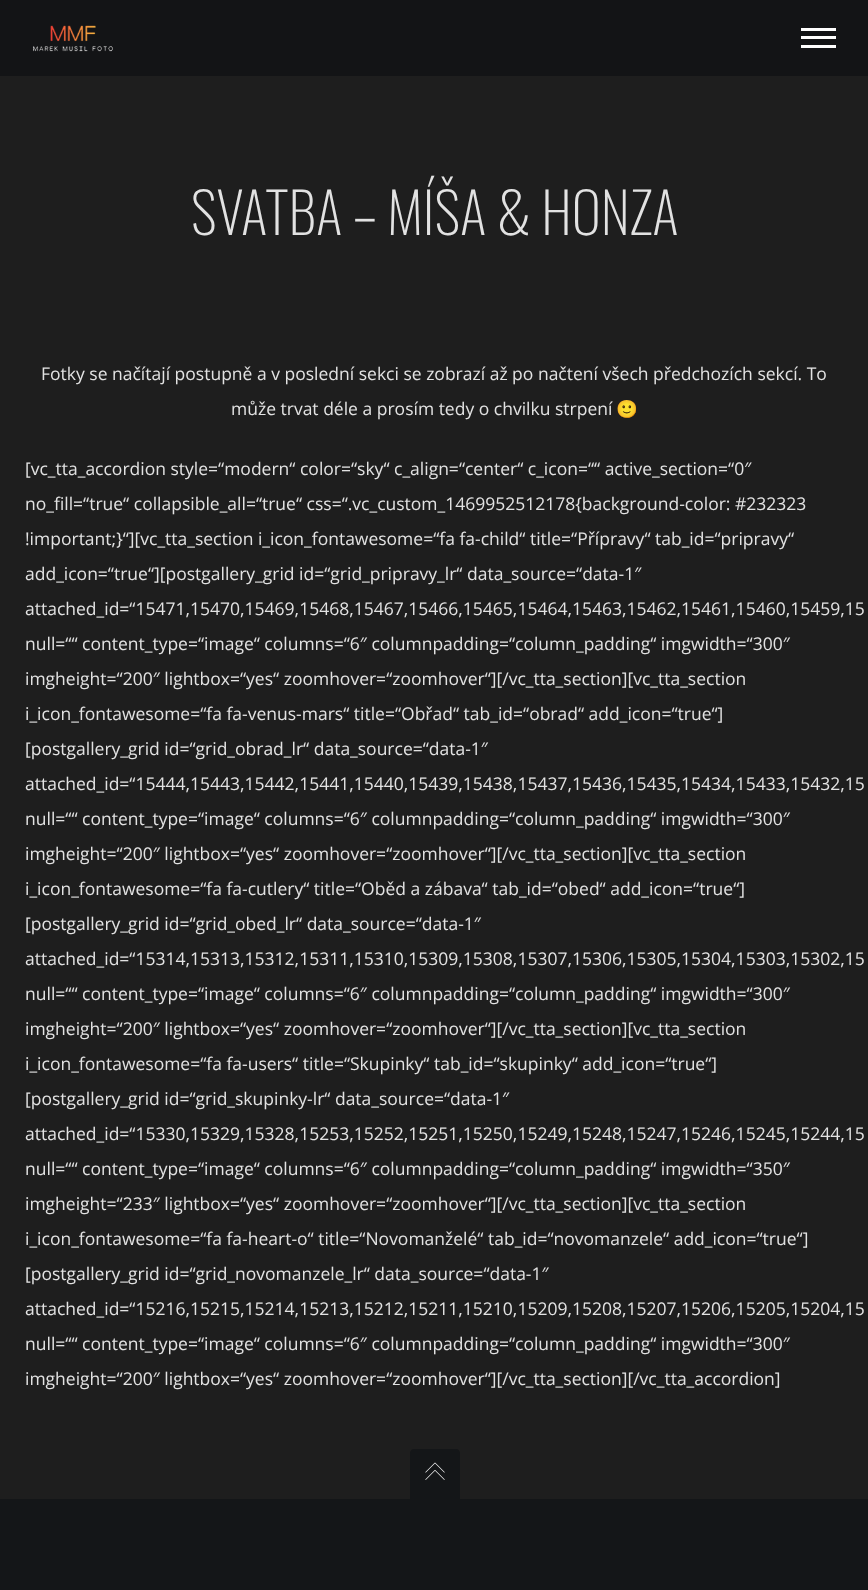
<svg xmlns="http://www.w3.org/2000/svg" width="868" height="1590">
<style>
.a{font:200 56.25px Oswald;fill:#e2e2e2}
.b{font:17.5px Open Sans;fill:#e2e2e2}
.c{font:17.5px Noto Color Emoji;fill:#e2e2e2}
</style>
<rect width="100%" height="100%" fill="#1e1e1e"/>
<path fill="#131416" d="M0 0h868v76H0z"/>
<image href="1.png" x="33" y="25" width="80" height="27"/>
<path fill="#fff" d="M801 36h35v3H801z"/>
<path fill="#fff" d="M801 28h35v3H801z"/>
<path fill="#fff" d="M801 45h35v3H801z"/>
<path fill="#141618" d="M0 1499h868v91H0z"/>
<path fill="#141618" d="M414 1449h42c2 0 4 2 4 4v46h-50v-46c0-2 2-4 4-4z"/>
<image href="2.png" x="425" y="1462" width="20" height="18"/>
<text class="a" x="191" y="235">SVATBA – MÍŠA &amp; HONZA</text>
<text class="b" x="41" y="380">Fotky se načítají postupně a v poslední sekci se zobrazí až po načtení všech předchozích sekcí. To</text>
<text class="b" x="231" y="415">může trvat déle a prosím tedy o chvilku strpení</text>
<text class="c" x="616" y="415">🙂</text>
<text class="b" x="25" y="475">[vc_tta_accordion style=“modern“ color=“sky“ c_align=“center“ c_icon=““ active_section=“0″</text>
<text class="b" x="25" y="510">no_fill=“true“ collapsible_all=“true“ css=“.vc_custom_1469952512178{background-color: #232323</text>
<text class="b" x="25" y="545">!important;}“][vc_tta_section i_icon_fontawesome=“fa fa-child“ title=“Přípravy“ tab_id=“pripravy“</text>
<text class="b" x="25" y="580">add_icon=“true“][postgallery_grid id=“grid_pripravy_lr“ data_source=“data-1″</text>
<text class="b" x="25" y="615">attached_id=“15471,15470,15469,15468,15467,15466,15465,15464,15463,15462,15461,15460,15459,15</text>
<text class="b" x="25" y="650">null=““ content_type=“image“ columns=“6″ columnpadding=“column_padding“ imgwidth=“300″</text>
<text class="b" x="25" y="685">imgheight=“200″ lightbox=“yes“ zoomhover=“zoomhover“][/vc_tta_section][vc_tta_section</text>
<text class="b" x="25" y="720">i_icon_fontawesome=“fa fa-venus-mars“ title=“Obřad“ tab_id=“obrad“ add_icon=“true“]</text>
<text class="b" x="25" y="755">[postgallery_grid id=“grid_obrad_lr“ data_source=“data-1″</text>
<text class="b" x="25" y="790">attached_id=“15444,15443,15442,15441,15440,15439,15438,15437,15436,15435,15434,15433,15432,15</text>
<text class="b" x="25" y="825">null=““ content_type=“image“ columns=“6″ columnpadding=“column_padding“ imgwidth=“300″</text>
<text class="b" x="25" y="860">imgheight=“200″ lightbox=“yes“ zoomhover=“zoomhover“][/vc_tta_section][vc_tta_section</text>
<text class="b" x="25" y="895">i_icon_fontawesome=“fa fa-cutlery“ title=“Oběd a zábava“ tab_id=“obed“ add_icon=“true“]</text>
<text class="b" x="25" y="930">[postgallery_grid id=“grid_obed_lr“ data_source=“data-1″</text>
<text class="b" x="25" y="965">attached_id=“15314,15313,15312,15311,15310,15309,15308,15307,15306,15305,15304,15303,15302,15</text>
<text class="b" x="25" y="1000">null=““ content_type=“image“ columns=“6″ columnpadding=“column_padding“ imgwidth=“300″</text>
<text class="b" x="25" y="1035">imgheight=“200″ lightbox=“yes“ zoomhover=“zoomhover“][/vc_tta_section][vc_tta_section</text>
<text class="b" x="25" y="1070">i_icon_fontawesome=“fa fa-users“ title=“Skupinky“ tab_id=“skupinky“ add_icon=“true“]</text>
<text class="b" x="25" y="1105">[postgallery_grid id=“grid_skupinky-lr“ data_source=“data-1″</text>
<text class="b" x="25" y="1140">attached_id=“15330,15329,15328,15253,15252,15251,15250,15249,15248,15247,15246,15245,15244,15</text>
<text class="b" x="25" y="1175">null=““ content_type=“image“ columns=“6″ columnpadding=“column_padding“ imgwidth=“350″</text>
<text class="b" x="25" y="1210">imgheight=“233″ lightbox=“yes“ zoomhover=“zoomhover“][/vc_tta_section][vc_tta_section</text>
<text class="b" x="25" y="1245">i_icon_fontawesome=“fa fa-heart-o“ title=“Novomanželé“ tab_id=“novomanzele“ add_icon=“true“]</text>
<text class="b" x="25" y="1280">[postgallery_grid id=“grid_novomanzele_lr“ data_source=“data-1″</text>
<text class="b" x="25" y="1315">attached_id=“15216,15215,15214,15213,15212,15211,15210,15209,15208,15207,15206,15205,15204,15</text>
<text class="b" x="25" y="1350">null=““ content_type=“image“ columns=“6″ columnpadding=“column_padding“ imgwidth=“300″</text>
<text class="b" x="25" y="1385">imgheight=“200″ lightbox=“yes“ zoomhover=“zoomhover“][/vc_tta_section][/vc_tta_accordion]</text>
</svg>
